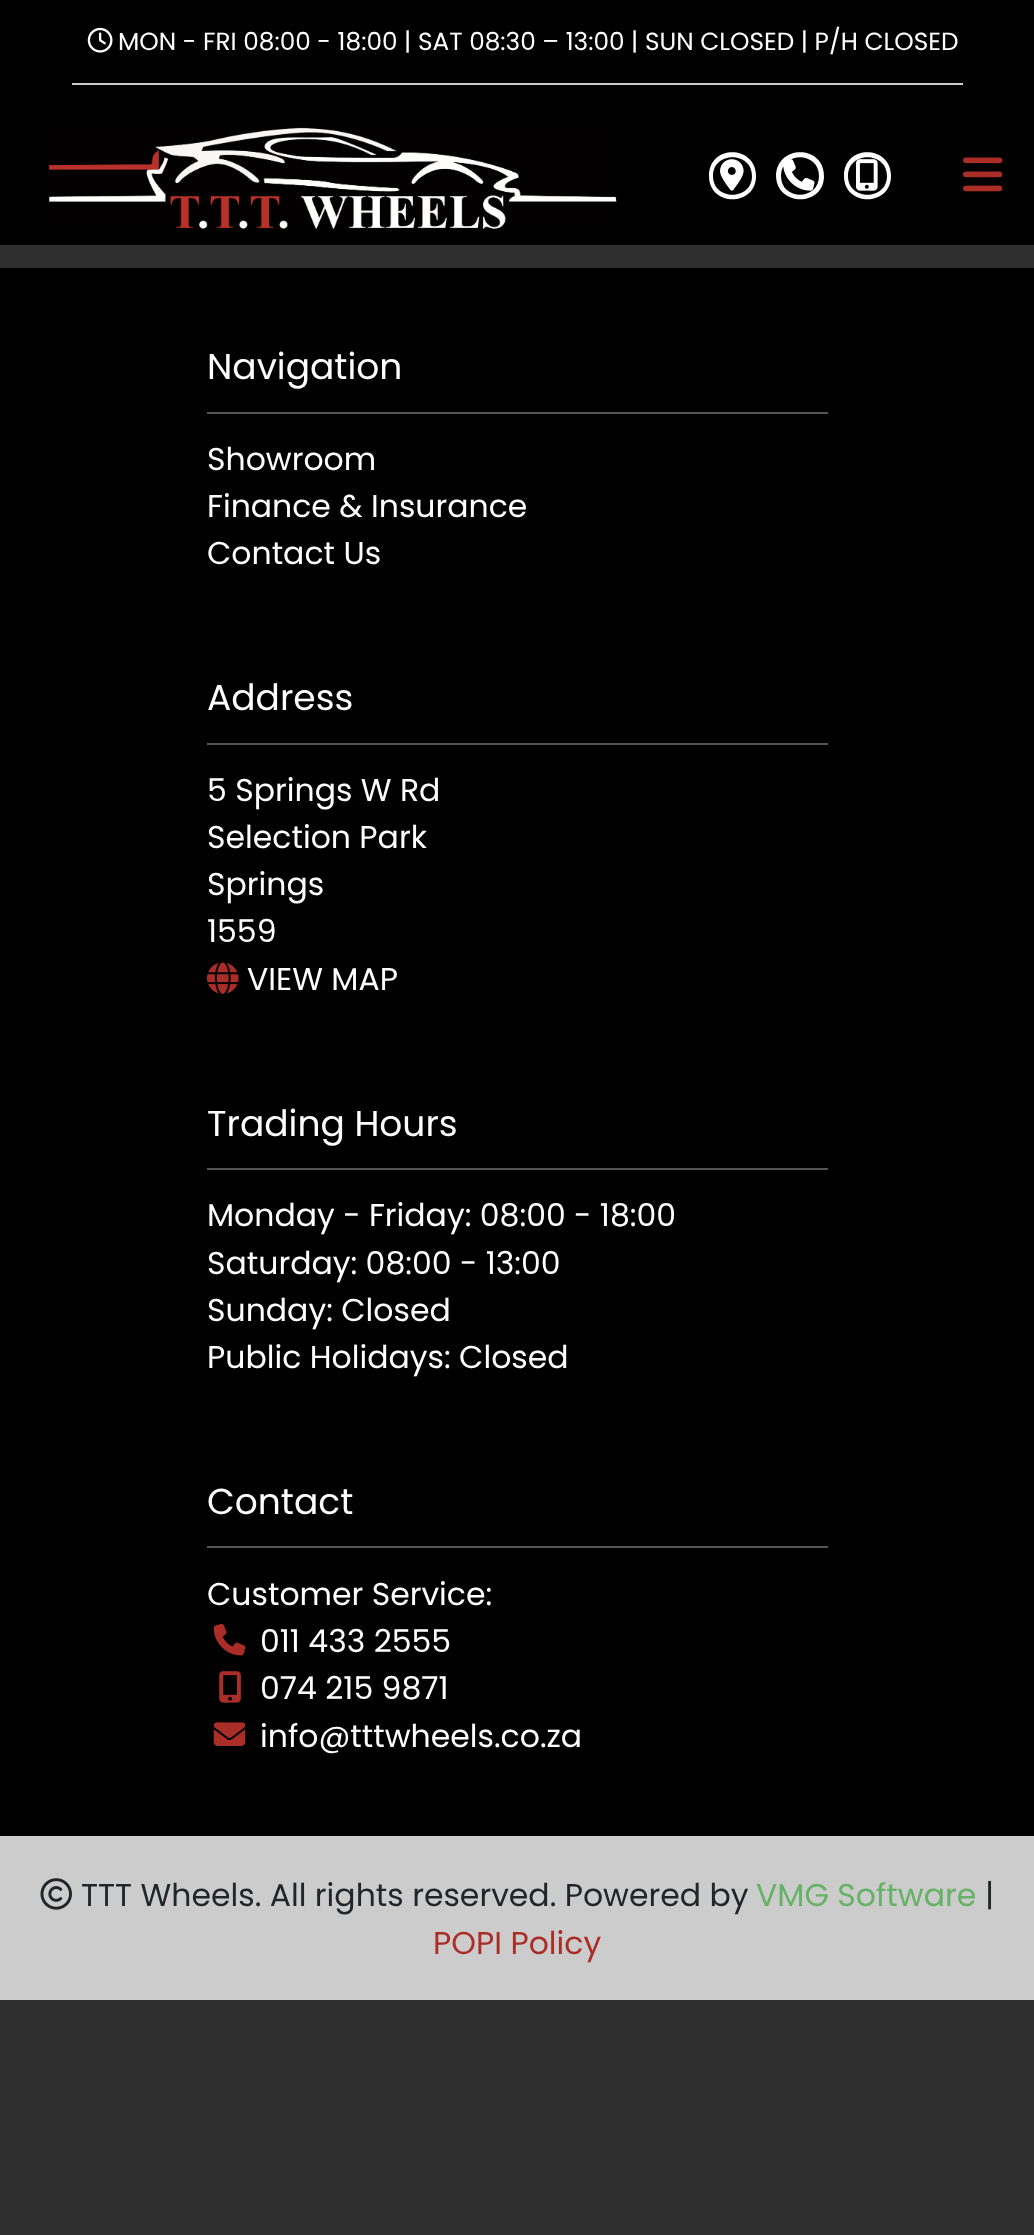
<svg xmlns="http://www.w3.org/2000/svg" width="1034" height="2235">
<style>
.a{font:24.75px Poppins;fill:#fff}
.b{font:36px Poppins;fill:#fff}
.c{font:31.5px Poppins;fill:#fff}
.d{font:31.5px Poppins;fill:#232628}
.e{font:31.5px Poppins;fill:#66b266}
.f{font:31.5px Poppins;fill:#ab2d27}
</style>
<rect width="100%" height="100%" fill="#2f2f2f"/>
<path fill="#000" d="M0 0h1034v245H0z"/>
<path fill="#ccc" d="M72 83h891v2H72z"/>
<image href="1.png" x="87" y="27" width="26" height="26"/>
<image href="2.png" x="48" y="127" width="569" height="102"/>
<image href="3.png" x="720" y="159" width="24" height="32"/>
<path fill="#fff" d="M752 176c0-25-39-25-39 0c0 25 39 25 39 0zm-43 0c0-32 47-31 47 0c0 31-47 31-47 0z"/>
<image href="4.png" x="783" y="159" width="32" height="32"/>
<path fill="#fff" d="M819 176c0-25-38-25-38 0c0 25 38 25 38 0zm-43 0c1-32 48-31 48 0c0 31-47 31-48 0z"/>
<image href="5.png" x="856" y="159" width="22" height="32"/>
<path fill="#fff" d="M887 176c0-25-39-25-39 0c0 25 39 25 39 0zm-43 0c0-32 47-31 47 0c0 31-47 31-47 0z"/>
<image href="6.png" x="963" y="157" width="40" height="35"/>
<path fill="#000" d="M0 268h1034v1568H0z"/>
<path fill="#555" d="M207 412h621v2H207z"/>
<path fill="#555" d="M207 743h621v2H207z"/>
<image href="7.png" x="207" y="962" width="32" height="32"/>
<path fill="#555" d="M207 1168h621v2H207z"/>
<path fill="#555" d="M207 1546h621v2H207z"/>
<image href="8.png" x="213" y="1623" width="33" height="33"/>
<image href="9.png" x="219" y="1671" width="22" height="32"/>
<image href="10.png" x="213" y="1722" width="33" height="24"/>
<path fill="#ccc" d="M0 1836h1034v164H0z"/>
<image href="11.png" x="40" y="1878" width="32" height="32"/>
<text class="a" x="118" y="50">MON - FRI 08:00 - 18:00 | SAT 08:30 – 13:00 | SUN CLOSED | P/H CLOSED</text>
<text class="b" x="207" y="379">Navigation</text>
<text class="c" x="207" y="470">Showroom</text>
<text class="c" x="207" y="517">Finance &amp; Insurance</text>
<text class="c" x="207" y="564">Contact Us</text>
<text class="b" x="207" y="710">Address</text>
<text class="c" x="207" y="801">5 Springs W Rd</text>
<text class="c" x="207" y="848">Selection Park</text>
<text class="c" x="207" y="895">Springs</text>
<text class="c" x="207" y="942">1559</text>
<text class="c" x="247" y="990">VIEW MAP</text>
<text class="b" x="207" y="1136">Trading Hours</text>
<text class="c" x="207" y="1226">Monday - Friday: 08:00 - 18:00</text>
<text class="c" x="207" y="1274">Saturday: 08:00 - 13:00</text>
<text class="c" x="207" y="1321">Sunday: Closed</text>
<text class="c" x="207" y="1368">Public Holidays: Closed</text>
<text class="b" x="207" y="1514">Contact</text>
<text class="c" x="207" y="1605">Customer Service:</text>
<text class="c" x="260" y="1652">011 433 2555</text>
<text class="c" x="260" y="1699">074 215 9871</text>
<text class="c" x="260" y="1747">info@tttwheels.co.za</text>
<text class="d" x="81" y="1906">TTT Wheels. All rights reserved. Powered by</text>
<text class="e" x="756" y="1906">VMG Software</text>
<text class="d" x="985" y="1906">|</text>
<text class="f" x="433" y="1954">POPI Policy</text>
</svg>
